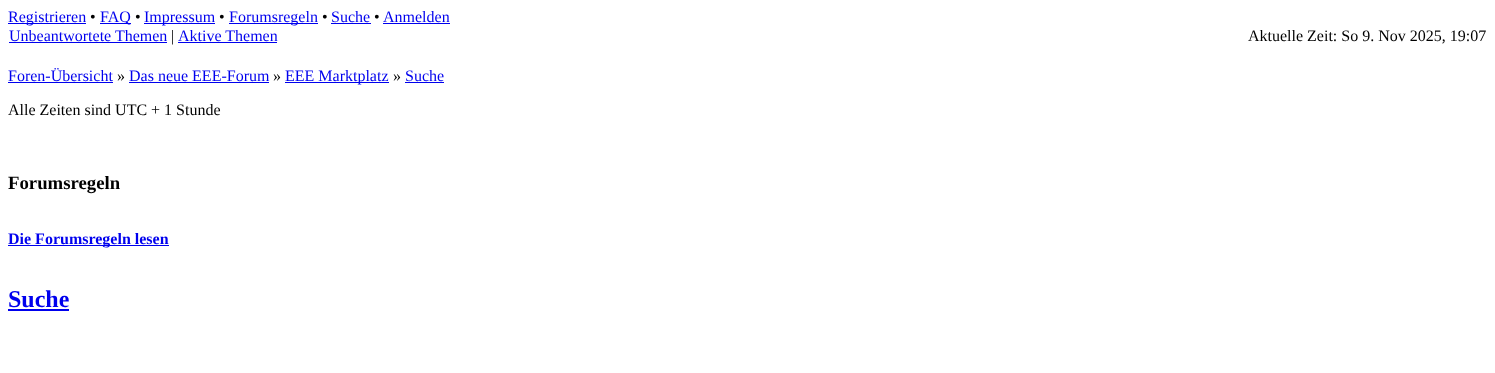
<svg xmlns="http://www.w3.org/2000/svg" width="1495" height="373">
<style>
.a{font:16px Liberation Serif;fill:#00e}
.b{font:16px Liberation Serif;fill:#000}
.c{font:bold 18.75px Liberation Serif;fill:#000}
.d{font:bold 16px Liberation Serif;fill:#00e}
.e{font:bold 24px Liberation Serif;fill:#00e}
</style>
<rect width="100%" height="100%" fill="#fff"/>
<path fill="#00e" d="M8 23h78v1H8z"/>
<path fill="#00e" d="M100 23h31v1H100z"/>
<path fill="#00e" d="M144 23h71v1H144z"/>
<path fill="#00e" d="M229 23h89v1H229z"/>
<path fill="#00e" d="M331 23h40v1H331z"/>
<path fill="#00e" d="M383 23h67v1H383z"/>
<path fill="#00e" d="M9 42h158v1H9z"/>
<path fill="#00e" d="M178 42h99v1H178z"/>
<path fill="#00e" d="M8 82h105v1H8z"/>
<path fill="#00e" d="M129 82h140v1H129z"/>
<path fill="#00e" d="M285 82h104v1H285z"/>
<path fill="#00e" d="M405 82h39v1H405z"/>
<path fill="#00e" d="M8 245h161v1H8z"/>
<path fill="#00e" d="M8 309h61v2H8z"/>
<text class="a" x="8" y="22">Registrieren</text>
<text class="b" x="90" y="22">•</text>
<text class="a" x="100" y="22">FAQ</text>
<text class="b" x="135" y="22">•</text>
<text class="a" x="144" y="22">Impressum</text>
<text class="b" x="219" y="22">•</text>
<text class="a" x="229" y="22">Forumsregeln</text>
<text class="b" x="322" y="22">•</text>
<text class="a" x="331" y="22">Suche</text>
<text class="b" x="374" y="22">•</text>
<text class="a" x="383" y="22">Anmelden</text>
<text class="a" x="9" y="41">Unbeantwortete Themen</text>
<text class="b" x="171" y="41">|</text>
<text class="a" x="178" y="41">Aktive Themen</text>
<text class="b" x="1248" y="41">Aktuelle Zeit: So 9. Nov 2025, 19:07</text>
<text class="a" x="8" y="81">Foren-Übersicht</text>
<text class="b" x="117" y="81">»</text>
<text class="a" x="129" y="81">Das neue EEE-Forum</text>
<text class="b" x="273" y="81">»</text>
<text class="a" x="285" y="81">EEE Marktplatz</text>
<text class="b" x="393" y="81">»</text>
<text class="a" x="405" y="81">Suche</text>
<text class="b" x="8" y="115">Alle Zeiten sind UTC + 1 Stunde</text>
<text class="c" x="8" y="189">Forumsregeln</text>
<text class="d" x="8" y="244">Die Forumsregeln lesen</text>
<text class="e" x="8" y="307">Suche</text>
</svg>
